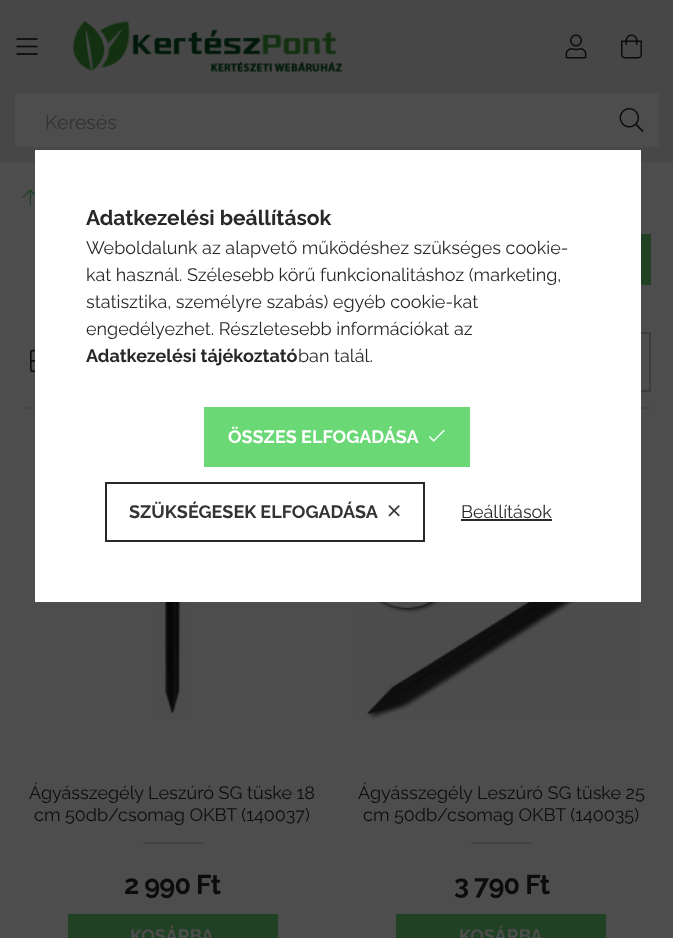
<svg xmlns="http://www.w3.org/2000/svg" width="673" height="938">
<style>
.a{font:19.5px Raleway;fill:#333}
.b{font:18px Raleway;fill:#0c0c0c}
.c{font:bold 27px Raleway;letter-spacing:-0.75px;fill:#0c0c0c}
.d{font:bold 18px Raleway;fill:#4d4d4d}
.e{font:bold 21px Raleway;fill:#282828}
.f{font:18px Raleway;fill:#282828}
.g{font:bold 18px Raleway;fill:#282828}
.h{font:bold 18px Raleway;fill:#fff}
.i{font:bold 18px Raleway;fill:#333}
</style>
<rect width="100%" height="100%" fill="#4d4d4d"/>
<path fill="#474747" d="M0 0h673v162H0z"/>
<image href="1.png" x="16" y="38" width="22" height="17"/>
<image href="2.png" x="73" y="21" width="269" height="51"/>
<image href="3.png" x="565" y="34" width="22" height="25"/>
<image href="4.png" x="621" y="34" width="21" height="25"/>
<path fill="#4d4d4d" d="M15 93h644v54H15z"/>
<image href="5.png" x="619" y="108" width="25" height="24"/>
<image href="6.png" x="22" y="189" width="13" height="17"/>
<path fill="#204123" d="M641 234h10v51H641z"/>
<path fill="#464646" d="M23 407h628v2H23z"/>
<image href="7.png" x="30" y="349" width="5" height="24"/>
<path fill="none" stroke="#3d3d3d" stroke-width="2" d="M352 333h298v58H352z"/>
<image href="8.png" x="154" y="602" width="39" height="118"/>
<path fill="#424242" d="M143 842h60v2H143z"/>
<path fill="#204123" d="M68 914h210v24H68z"/>
<image href="9.png" x="356" y="602" width="284" height="118"/>
<path fill="#424242" d="M471 842h60v2H471z"/>
<path fill="#204123" d="M396 914h210v24H396z"/>
<path fill="#fff" d="M35 150h606v452H35z"/>
<path fill="#6bd876" d="M204 407h266v60H204z"/>
<image href="10.png" x="429" y="429" width="16" height="13"/>
<path fill="none" stroke="#282828" stroke-width="2" d="M106 483h318v58H106z"/>
<image href="11.png" x="388" y="505" width="12" height="12"/>
<path fill="#282828" d="M461 519h91v2H461z"/>
<text class="a" x="45" y="129">Keresés</text>
<text class="b" x="29" y="799">Ágyásszegély Leszúró SG tüske 18</text>
<text class="b" x="34" y="821">cm 50db/csomag OKBT (140037)</text>
<text class="c" x="124" y="894">2 990 Ft</text>
<text class="d" x="130" y="942">KOSÁRBA</text>
<text class="b" x="358" y="799">Ágyásszegély Leszúró SG tüske 25</text>
<text class="b" x="363" y="821">cm 50db/csomag OKBT (140035)</text>
<text class="c" x="454" y="894">3 790 Ft</text>
<text class="d" x="459" y="942">KOSÁRBA</text>
<text class="e" x="86" y="225">Adatkezelési beállítások</text>
<text class="f" x="86" y="254">Weboldalunk az alapvető működéshez szükséges cookie-</text>
<text class="f" x="86" y="281">kat használ. Szélesebb körű funkcionalitáshoz (marketing,</text>
<text class="f" x="86" y="308">statisztika, személyre szabás) egyéb cookie-kat</text>
<text class="f" x="86" y="335">engedélyezhet. Részletesebb információkat az</text>
<text class="g" x="86" y="362">Adatkezelési tájékoztató</text>
<text class="f" x="298" y="362">ban talál.</text>
<text class="h" x="228" y="443">ÖSSZES ELFOGADÁSA</text>
<text class="i" x="129" y="518">SZÜKSÉGESEK ELFOGADÁSA</text>
<text class="f" x="461" y="518">Beállítások</text>
</svg>
